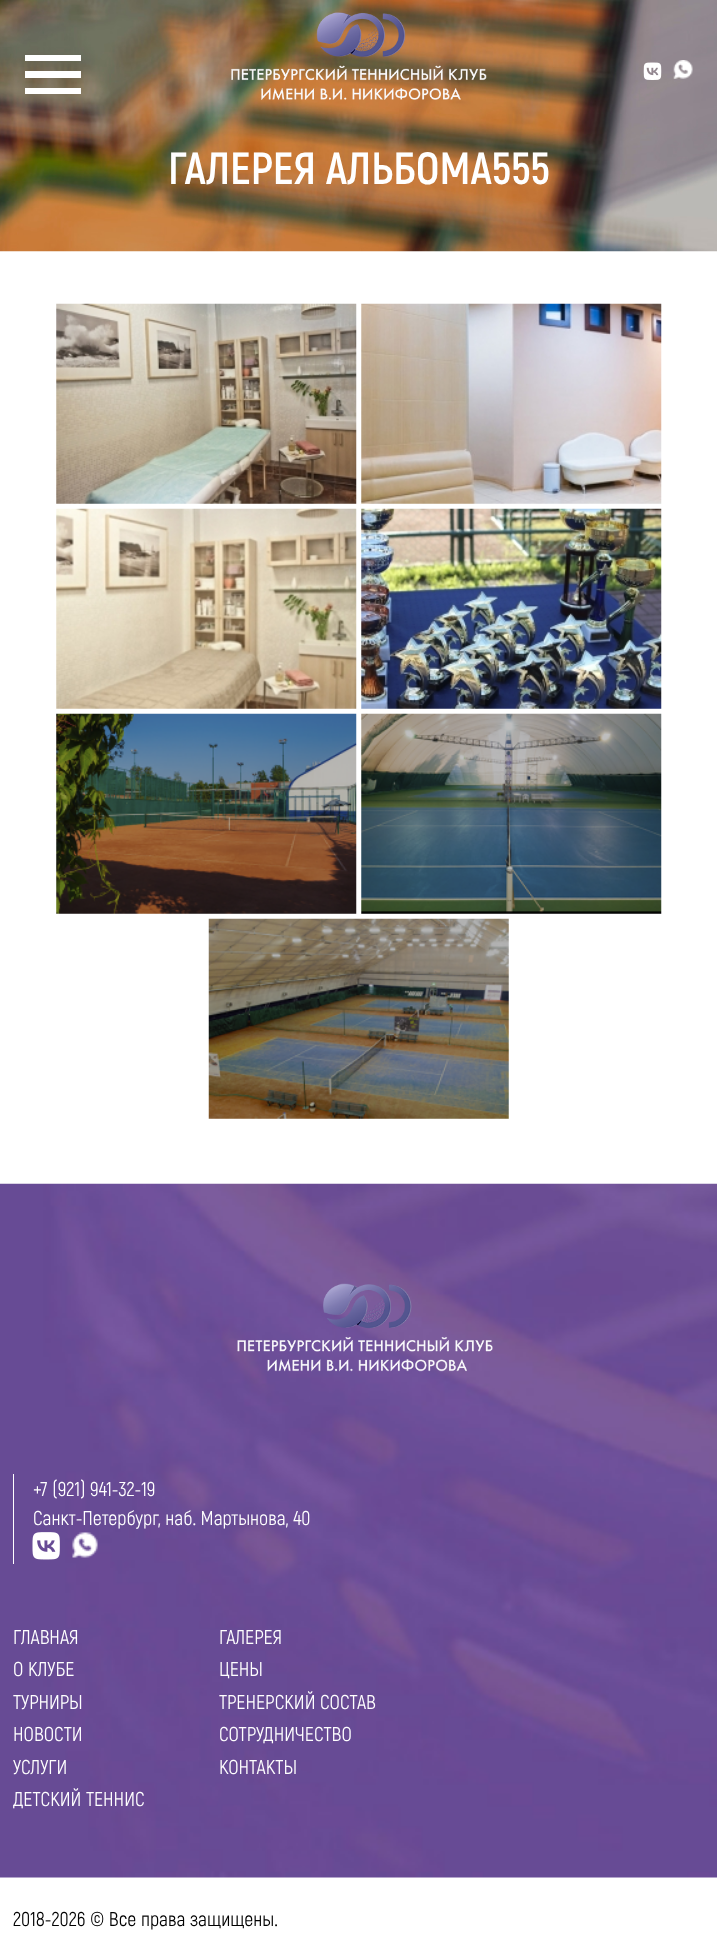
<svg xmlns="http://www.w3.org/2000/svg" width="717" height="1940">
<style>
.a{font:bold 45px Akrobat;fill:#fff}
.b{font:20px Akrobat;fill:#fff}
.c{font:20px Akrobat;fill:#000}
</style>
<rect width="100%" height="100%" fill="#fff"/>
<image href="1.png" x="0" y="0" width="717" height="252"/>
<path fill="#fff" d="M25 55h56v6H25z"/>
<path fill="#fff" d="M25 71h56v7H25z"/>
<path fill="#fff" d="M25 88h56v6H25z"/>
<image href="2.png" x="231" y="12" width="256" height="88"/>
<image href="3.png" x="643" y="62" width="19" height="18"/>
<image href="4.png" x="673" y="60" width="20" height="19"/>
<image href="5.png" x="56" y="303" width="301" height="201"/>
<image href="6.png" x="361" y="303" width="301" height="201"/>
<image href="7.png" x="56" y="508" width="301" height="201"/>
<image href="8.png" x="361" y="508" width="301" height="201"/>
<image href="9.png" x="56" y="713" width="301" height="201"/>
<image href="10.png" x="361" y="713" width="301" height="201"/>
<image href="11.png" x="208" y="918" width="301" height="201"/>
<image href="12.png" x="0" y="1183" width="717" height="695"/>
<image href="13.png" x="237" y="1283" width="256" height="89"/>
<path fill="#fff" d="M13 1474h1v90H13z"/>
<image href="14.png" x="32" y="1532" width="28" height="28"/>
<image href="15.png" x="72" y="1532" width="26" height="26"/>
<text class="a" x="168" y="184">ГАЛЕРЕЯ АЛЬБОМА555</text>
<text class="b" x="33" y="1496">+7 (921) 941-32-19</text>
<text class="b" x="33" y="1525">Санкт-Петербург, наб. Мартынова, 40</text>
<text class="b" x="13" y="1644">ГЛАВНАЯ</text>
<text class="b" x="13" y="1676">О КЛУБЕ</text>
<text class="b" x="13" y="1709">ТУРНИРЫ</text>
<text class="b" x="13" y="1741">НОВОСТИ</text>
<text class="b" x="13" y="1774">УСЛУГИ</text>
<text class="b" x="13" y="1806">ДЕТСКИЙ ТЕННИС</text>
<text class="b" x="219" y="1644">ГАЛЕРЕЯ</text>
<text class="b" x="219" y="1676">ЦЕНЫ</text>
<text class="b" x="219" y="1709">ТРЕНЕРСКИЙ СОСТАВ</text>
<text class="b" x="219" y="1741">СОТРУДНИЧЕСТВО</text>
<text class="b" x="219" y="1774">КОНТАКТЫ</text>
<text class="c" x="13" y="1926">2018-2026 © Все права защищены.</text>
</svg>
